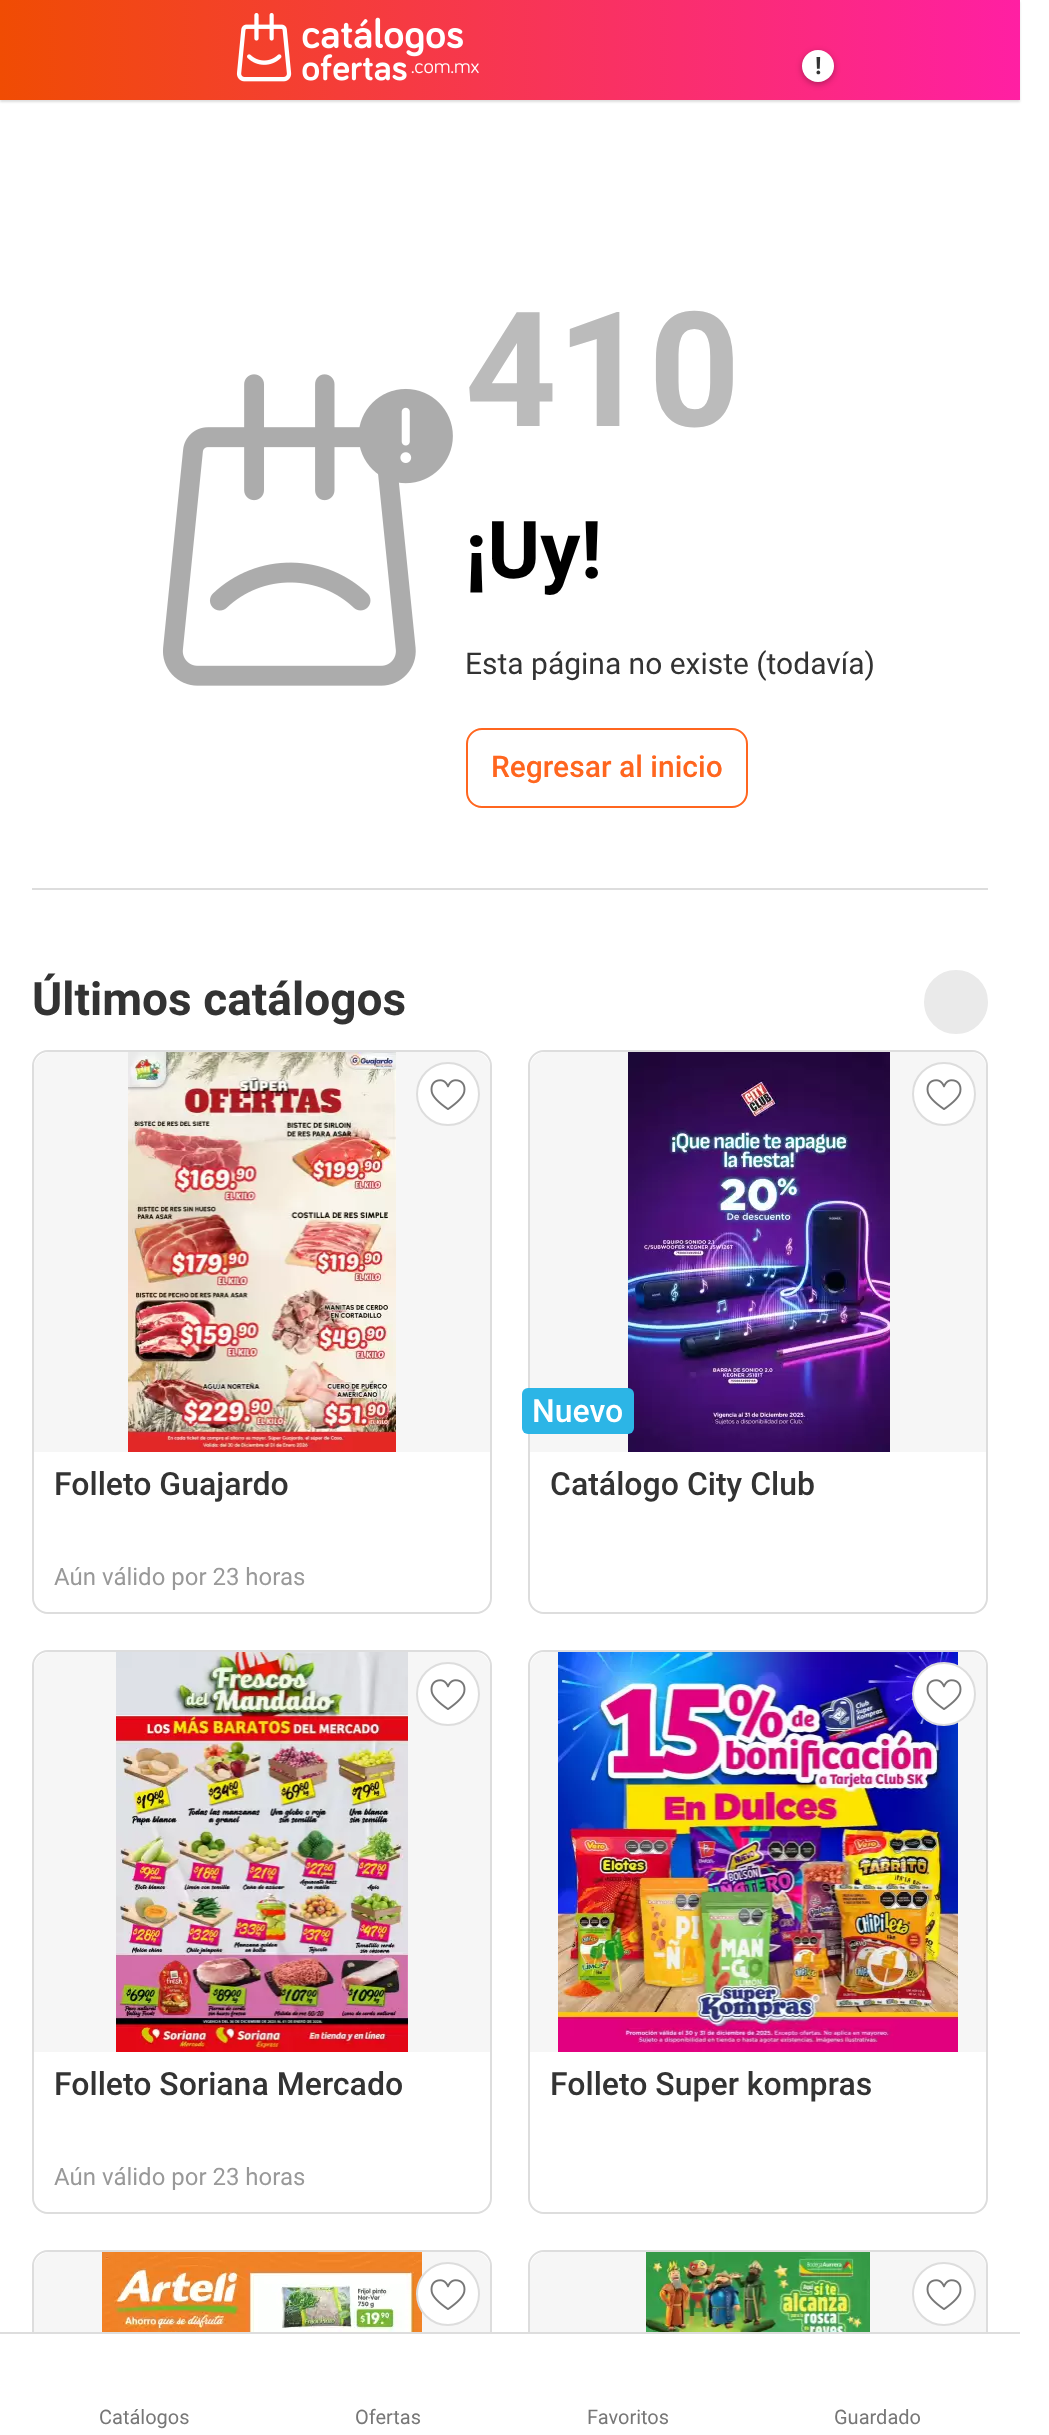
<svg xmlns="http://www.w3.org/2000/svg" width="1049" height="2435">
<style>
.a{font:bold 24px Roboto;fill:#333}
.b{font:bold 160px Roboto;fill:#bbb}
.c{font:bold 80px Roboto;fill:#000}
.d{font:30px Roboto;fill:#333}
.e{font:500 30px Roboto;fill:#ff661f}
.f{font:bold 46px Roboto;fill:#333}
.g{font:500 32px Roboto;fill:#fff}
.h{font:500 32px Roboto;fill:#333}
.i{font:24px Roboto;fill:#999}
.j{font:20px Roboto;fill:#777}
</style>
<defs>
<linearGradient id="g1" gradientUnits="userSpaceOnUse" x1="1020" y1="50" x2="0" y2="50"><stop offset="0" stop-color="#ff1fa3"/><stop offset="1" stop-color="#f04c03"/></linearGradient>
</defs>
<rect width="100%" height="100%" fill="#fff"/>
<path fill="#ddd" filter="blur(1px)" d="M0 2h1020v100H0z"/>
<path fill="url(#g1)" d="M0 0h1020v100H0z"/>
<image href="1.png" x="236" y="13" width="243" height="69"/>
<rect fill="#0000004d" filter="blur(3px)" x="802" y="52" width="32" height="32" rx="16"/>
<circle fill="#fff" cx="818" cy="66" r="16"/>
<path fill="#ddd" d="M32 888h956v2H32z"/>
<image href="2.png" x="163" y="374" width="290" height="312"/>
<rect fill="none" stroke="#ff661f" stroke-width="2" x="467" y="729" width="280" height="78" rx="15"/>
<circle fill="#eaeaea" stroke="#eaeaea" stroke-width="2" cx="956" cy="1002" r="31"/>
<rect fill="none" stroke="#ddd" stroke-width="2" x="529" y="1051" width="458" height="562" rx="15"/>
<path fill="#f6f6f6" d="M546 1052h424c9 0 16 7 16 16v384h-456v-384c0-9 7-16 16-16z"/>
<circle fill="#fff" stroke="#ddd" stroke-width="2" cx="944" cy="1094" r="31"/>
<image href="3.png" x="926" y="1079" width="36" height="31"/>
<image href="4.png" x="628" y="1052" width="262" height="400"/>
<rect fill="#2cb5e6" x="522" y="1388" width="112" height="46" rx="6"/>
<path fill="#fff" d="M530 1452h456v144c0 9-7 16-16 16h-424c-9 0-16-7-16-16z"/>
<rect fill="none" stroke="#ddd" stroke-width="2" x="33" y="1051" width="458" height="562" rx="15"/>
<path fill="#f6f6f6" d="M50 1052h424c9 0 16 7 16 16v384h-456v-384c0-9 7-16 16-16z"/>
<image href="5.png" x="128" y="1052" width="268" height="400"/>
<circle fill="#fff" stroke="#ddd" stroke-width="2" cx="448" cy="1094" r="31"/>
<image href="3.png" x="430" y="1079" width="36" height="31"/>
<path fill="#fff" d="M34 1452h456v144c0 9-7 16-16 16h-424c-9 0-16-7-16-16z"/>
<rect fill="none" stroke="#ddd" stroke-width="2" x="33" y="1651" width="458" height="562" rx="15"/>
<path fill="#f6f6f6" d="M50 1652h424c9 0 16 7 16 16v384h-456v-384c0-9 7-16 16-16z"/>
<image href="6.png" x="116" y="1652" width="292" height="400"/>
<circle fill="#fff" stroke="#ddd" stroke-width="2" cx="448" cy="1694" r="31"/>
<image href="3.png" x="430" y="1679" width="36" height="31"/>
<path fill="#fff" d="M34 2052h456v144c0 9-7 16-16 16h-424c-9 0-16-7-16-16z"/>
<rect fill="none" stroke="#ddd" stroke-width="2" x="529" y="1651" width="458" height="562" rx="15"/>
<path fill="#f6f6f6" d="M546 1652h424c9 0 16 7 16 16v384h-456v-384c0-9 7-16 16-16z"/>
<image href="7.png" x="558" y="1652" width="400" height="400"/>
<circle fill="#fff" stroke="#ddd" stroke-width="2" cx="944" cy="1694" r="31"/>
<image href="3.png" x="926" y="1679" width="36" height="31"/>
<path fill="#fff" d="M530 2052h456v144c0 9-7 16-16 16h-424c-9 0-16-7-16-16z"/>
<rect fill="none" stroke="#ddd" stroke-width="2" x="33" y="2251" width="458" height="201" rx="15"/>
<path fill="#f6f6f6" d="M50 2252h424c9 0 16 7 16 16v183h-456v-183c0-9 7-16 16-16z"/>
<image href="8.png" x="102" y="2252" width="320" height="80"/>
<circle fill="#fff" stroke="#ddd" stroke-width="2" cx="448" cy="2294" r="31"/>
<image href="3.png" x="430" y="2279" width="36" height="31"/>
<rect fill="none" stroke="#ddd" stroke-width="2" x="529" y="2251" width="458" height="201" rx="15"/>
<path fill="#f6f6f6" d="M546 2252h424c9 0 16 7 16 16v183h-456v-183c0-9 7-16 16-16z"/>
<image href="9.png" x="646" y="2252" width="224" height="80"/>
<circle fill="#fff" stroke="#ddd" stroke-width="2" cx="944" cy="2294" r="31"/>
<image href="3.png" x="926" y="2279" width="36" height="31"/>
<path fill="#fff" d="M32 2334h956v101H32z"/>
<path fill="#ddd" d="M0 2332h1020v2H0z"/>
<text class="a" x="815" y="74">!</text>
<text class="b" x="465" y="426">410</text>
<text class="c" x="465" y="578">¡Uy!</text>
<text class="d" x="465" y="674">Esta página no existe (todavía)</text>
<text class="e" x="491" y="777">Regresar al inicio</text>
<text class="f" x="32" y="1015">Últimos catálogos</text>
<text class="g" x="532" y="1422">Nuevo</text>
<text class="h" x="550" y="1495">Catálogo City Club</text>
<text class="h" x="54" y="1495">Folleto Guajardo</text>
<text class="i" x="54" y="1585">Aún válido por 23 horas</text>
<text class="h" x="54" y="2095">Folleto Soriana Mercado</text>
<text class="i" x="54" y="2185">Aún válido por 23 horas</text>
<text class="h" x="550" y="2095">Folleto Super kompras</text>
<text class="j" x="99" y="2424">Catálogos</text>
<text class="j" x="355" y="2424">Ofertas</text>
<text class="j" x="587" y="2424">Favoritos</text>
<text class="j" x="834" y="2424">Guardado</text>
</svg>
